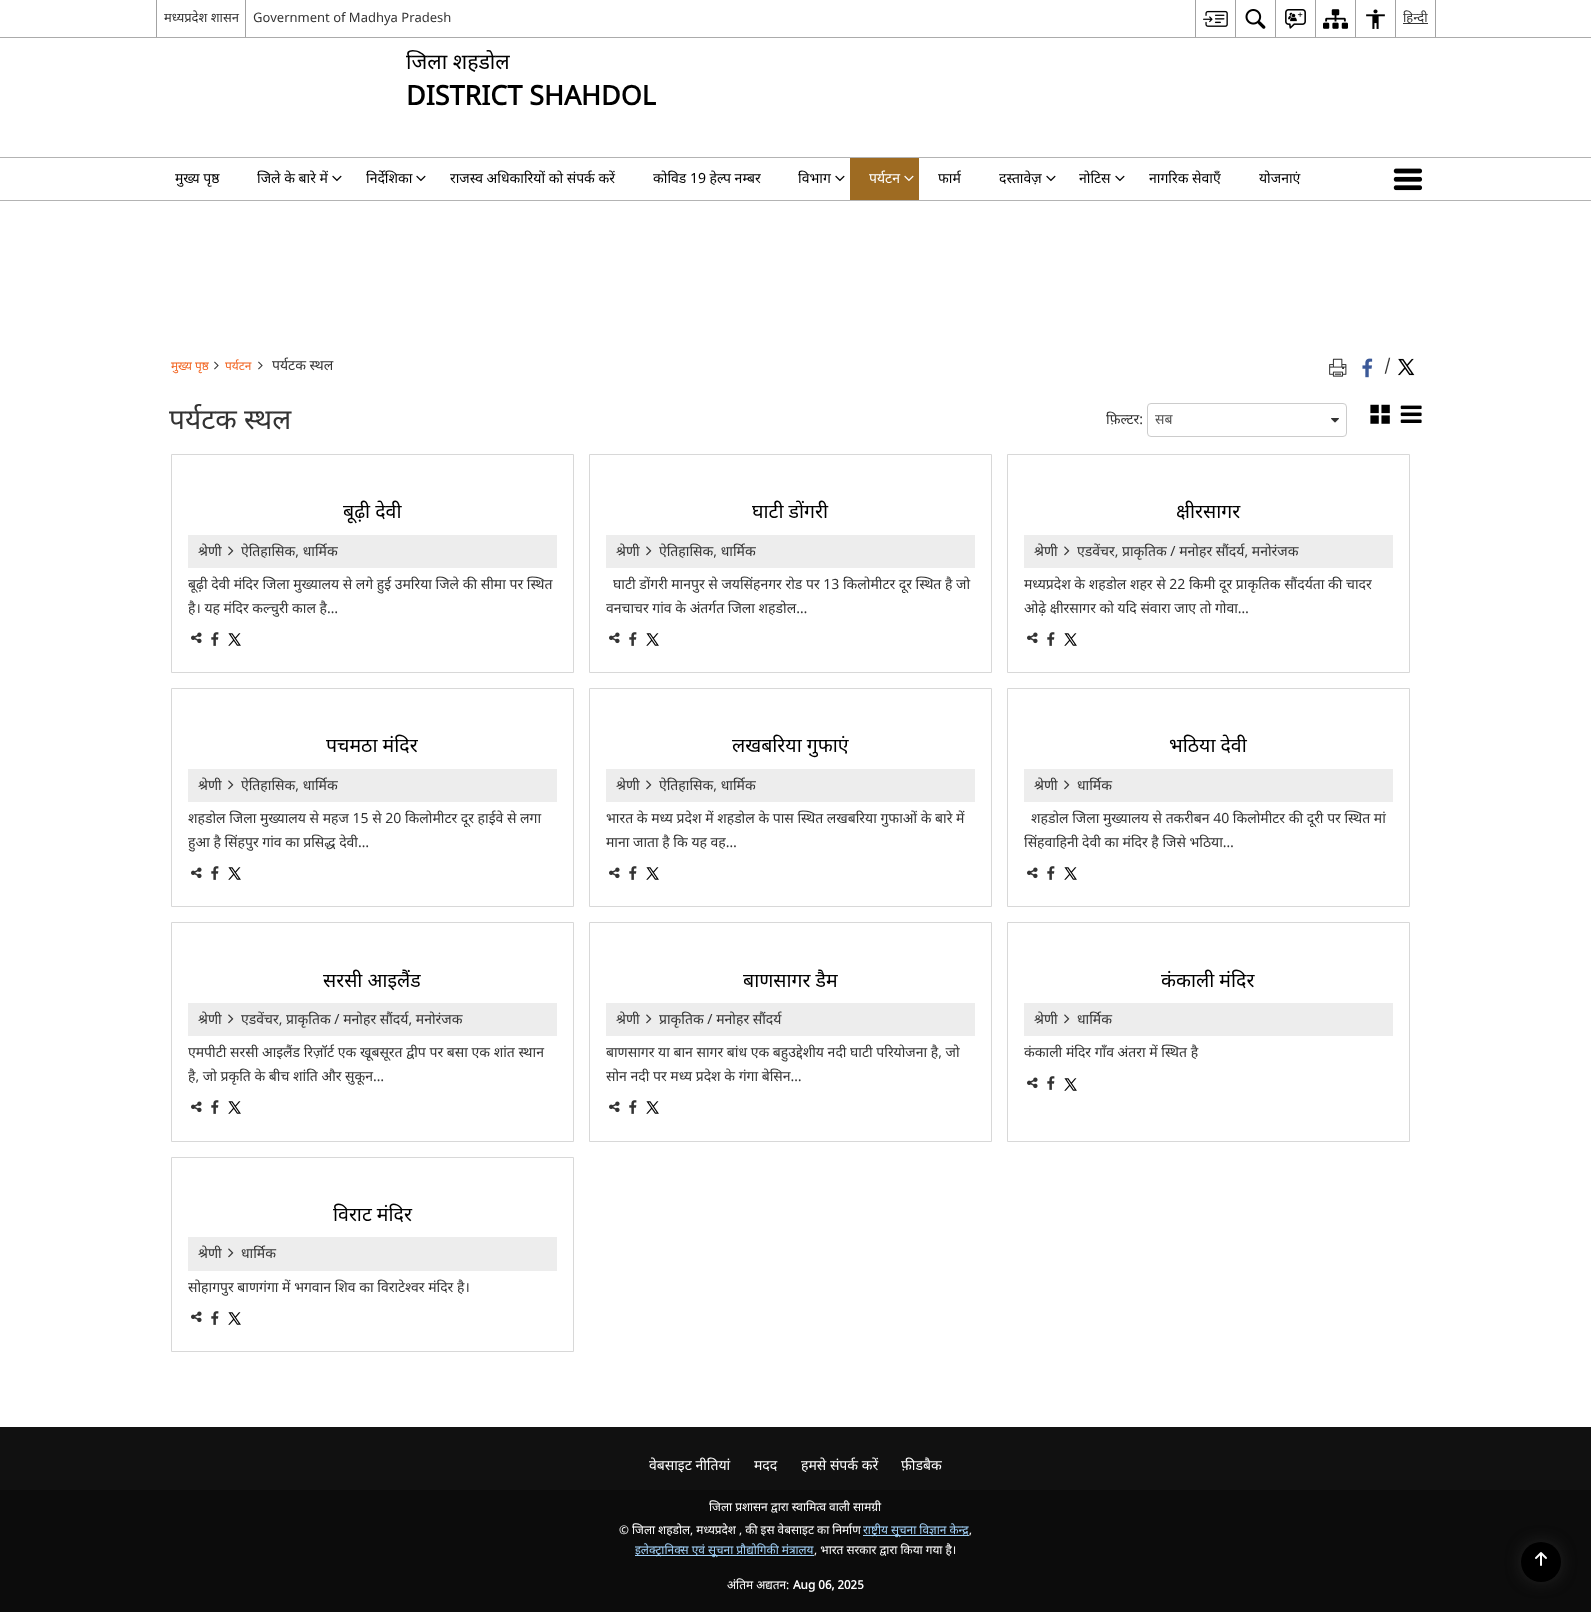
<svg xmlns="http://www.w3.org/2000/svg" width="1591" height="1612">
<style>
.a{font:13px Noto Sans;fill:#333}
.b{font:13px 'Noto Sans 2';fill:#333}
.c{font:21.25px Noto Sans;fill:#000}
.d{font:bold 26.9px Noto Sans;fill:#000}
.e{font:14px Noto Sans;fill:#000}
.f{font:14px Noto Sans;fill:#fff}
.g{font:11.9px Noto Sans;fill:#f26522}
.h{font:14px Noto Sans;fill:#333}
.i{font:16px 'Noto Sans 2';fill:#333}
.j{font:28px Noto Sans;fill:#333}
.k{font:14px Noto Sans;fill:#555}
.l{font:19.5px Noto Sans;fill:#000}
.m{font:11.9px Noto Sans;fill:#fff}
.n{font:11.9px Noto Sans;fill:#a3d2f9}
.o{font:11.9px 'Noto Sans 2';fill:#fff}
.p{font:bold 11.9px Noto Sans;fill:#fff}
</style>
<defs>
<clipPath id="clip1"><path d="M188 573h369v47H188z"/></clipPath>
<clipPath id="clip2"><path d="M188 1041h369v48H188z"/></clipPath>
<clipPath id="clip3"><path d="M606 1041h369v48H606z"/></clipPath>
<clipPath id="clip4"><path d="M1024 1041h369v24H1024z"/></clipPath>
<clipPath id="clip5"><path d="M188 1276h369v23H188z"/></clipPath>
</defs>
<rect width="100%" height="100%" fill="#fff"/>
<path fill="#ababab" d="M0 37h1591v1H0z"/>
<path fill="#a3a3a3" d="M156 0h1v37H156z"/>
<path fill="#a3a3a3" d="M245 0h1v37H245z"/>
<path fill="#a3a3a3" d="M1195 0h1v37H1195z"/>
<image href="1.png" x="1203" y="10" width="25" height="17"/>
<path fill="#a3a3a3" d="M1235 0h1v37H1235z"/>
<image href="2.png" x="1245" y="9" width="21" height="20"/>
<path fill="#a3a3a3" d="M1275 0h1v37H1275z"/>
<image href="3.png" x="1285" y="9" width="21" height="20"/>
<path fill="#a3a3a3" d="M1315 0h1v37H1315z"/>
<image href="4.png" x="1323" y="9" width="25" height="20"/>
<path fill="#a3a3a3" d="M1355 0h1v37H1355z"/>
<image href="5.png" x="1366" y="9" width="19" height="20"/>
<path fill="#a3a3a3" d="M1435 0h1v37H1435z"/>
<path fill="#a3a3a3" d="M1395 0h1v37H1395z"/>
<path fill="#333" d="M1403 23h25v1H1403z"/>
<path fill="#b3b3b3" d="M0 157h1591v1H0z"/>
<path fill="#b3b3b3" d="M0 200h1591v1H0z"/>
<image href="6.png" x="332" y="175" width="10" height="7"/>
<image href="6.png" x="416" y="175" width="10" height="7"/>
<image href="6.png" x="835" y="175" width="10" height="7"/>
<path fill="#9e6b22" d="M850 158h69v42H850z"/>
<image href="7.png" x="904" y="175" width="10" height="7"/>
<image href="6.png" x="1046" y="175" width="10" height="7"/>
<image href="6.png" x="1115" y="175" width="10" height="7"/>
<image href="8.png" x="1393" y="168" width="30" height="23"/>
<image href="9.png" x="214" y="361" width="5" height="9"/>
<image href="9.png" x="258" y="361" width="5" height="9"/>
<image href="10.png" x="1329" y="358" width="18" height="19"/>
<image href="11.png" x="1362" y="358" width="11" height="20"/>
<image href="12.png" x="1398" y="358" width="17" height="18"/>
<image href="13.png" x="1331" y="418" width="8" height="5"/>
<rect fill="none" stroke="#ccc" x="1147.5" y="403.5" width="199" height="33" rx="3.5"/>
<image href="14.png" x="1370" y="404" width="20" height="20"/>
<image href="15.png" x="1400" y="405" width="22" height="18"/>
<path fill="none" stroke="#d8d8d8" d="M171.5 454.5h402v218H171.5z"/>
<path fill="#ededed" d="M188 535h369v33H188z"/>
<image href="16.png" x="228" y="546" width="6" height="10"/>
<image href="17.png" x="191" y="632" width="11" height="12"/>
<image href="18.png" x="211" y="632" width="8" height="14"/>
<image href="19.png" x="228" y="633" width="13" height="13"/>
<path fill="none" stroke="#d8d8d8" d="M589.5 454.5h402v218H589.5z"/>
<path fill="#ededed" d="M606 535h369v33H606z"/>
<image href="16.png" x="646" y="546" width="6" height="10"/>
<image href="17.png" x="609" y="632" width="11" height="12"/>
<image href="18.png" x="629" y="632" width="8" height="14"/>
<image href="19.png" x="646" y="633" width="13" height="13"/>
<path fill="none" stroke="#d8d8d8" d="M1007.5 454.5h402v218H1007.5z"/>
<path fill="#ededed" d="M1024 535h369v33H1024z"/>
<image href="16.png" x="1064" y="546" width="6" height="10"/>
<image href="17.png" x="1027" y="632" width="11" height="12"/>
<image href="18.png" x="1047" y="632" width="8" height="14"/>
<image href="19.png" x="1064" y="633" width="13" height="13"/>
<path fill="none" stroke="#d8d8d8" d="M171.5 688.5h402v218H171.5z"/>
<path fill="#ededed" d="M188 769h369v33H188z"/>
<image href="16.png" x="228" y="780" width="6" height="10"/>
<image href="17.png" x="191" y="867" width="11" height="12"/>
<image href="18.png" x="211" y="866" width="8" height="14"/>
<image href="19.png" x="228" y="867" width="13" height="13"/>
<path fill="none" stroke="#d8d8d8" d="M589.5 688.5h402v218H589.5z"/>
<path fill="#ededed" d="M606 769h369v33H606z"/>
<image href="16.png" x="646" y="780" width="6" height="10"/>
<image href="17.png" x="609" y="867" width="11" height="12"/>
<image href="18.png" x="629" y="866" width="8" height="14"/>
<image href="19.png" x="646" y="867" width="13" height="13"/>
<path fill="none" stroke="#d8d8d8" d="M1007.5 688.5h402v218H1007.5z"/>
<path fill="#ededed" d="M1024 769h369v33H1024z"/>
<image href="16.png" x="1064" y="780" width="6" height="10"/>
<image href="17.png" x="1027" y="867" width="11" height="12"/>
<image href="18.png" x="1047" y="866" width="8" height="14"/>
<image href="19.png" x="1064" y="867" width="13" height="13"/>
<path fill="none" stroke="#d8d8d8" d="M171.5 922.5h402v219H171.5z"/>
<path fill="#ededed" d="M188 1003h369v33H188z"/>
<image href="16.png" x="228" y="1014" width="6" height="10"/>
<image href="17.png" x="191" y="1101" width="11" height="12"/>
<image href="18.png" x="211" y="1100" width="8" height="14"/>
<image href="19.png" x="228" y="1101" width="13" height="13"/>
<path fill="none" stroke="#d8d8d8" d="M589.5 922.5h402v219H589.5z"/>
<path fill="#ededed" d="M606 1003h369v33H606z"/>
<image href="16.png" x="646" y="1014" width="6" height="10"/>
<image href="17.png" x="609" y="1101" width="11" height="12"/>
<image href="18.png" x="629" y="1100" width="8" height="14"/>
<image href="19.png" x="646" y="1101" width="13" height="13"/>
<path fill="none" stroke="#d8d8d8" d="M1007.5 922.5h402v219H1007.5z"/>
<path fill="#ededed" d="M1024 1003h369v33H1024z"/>
<image href="16.png" x="1064" y="1014" width="6" height="10"/>
<image href="17.png" x="1027" y="1077" width="11" height="12"/>
<image href="18.png" x="1047" y="1076" width="8" height="14"/>
<image href="19.png" x="1064" y="1078" width="13" height="13"/>
<path fill="none" stroke="#d8d8d8" d="M171.5 1157.5h402v194H171.5z"/>
<path fill="#ededed" d="M188 1237h369v34H188z"/>
<image href="16.png" x="228" y="1248" width="6" height="10"/>
<image href="17.png" x="191" y="1311" width="11" height="12"/>
<image href="18.png" x="211" y="1311" width="8" height="14"/>
<image href="19.png" x="228" y="1312" width="13" height="13"/>
<path fill="#111" d="M0 1427h1591v63H0z"/>
<path fill="#0c0c0c" d="M0 1490h1591v122H0z"/>
<path fill="#a3d2f9" d="M863 1535h106v1H863z"/>
<path fill="#a3d2f9" d="M635 1555h179v1H635z"/>
<rect fill="#3c3c3c" filter="blur(9.5px)" x="1526" y="1547" width="30" height="30" rx="15"/>
<circle fill="#000" cx="1541" cy="1562" r="20"/>
<image href="20.png" x="1535" y="1552" width="12" height="14"/>
<text class="a" x="164" y="22">मध्यप्रदेश शासन</text>
<text class="b" x="253" y="22">Government of Madhya Pradesh</text>
<text class="a" x="1403" y="22">हिन्दी</text>
<text class="c" x="406" y="69">जिला शहडोल</text>
<text class="d" x="406" y="105">DISTRICT SHAHDOL</text>
<text class="e" x="175" y="183">मुख्य पृष्ठ</text>
<text class="e" x="257" y="183">जिले के बारे में</text>
<text class="e" x="366" y="183">निर्देशिका</text>
<text class="e" x="450" y="183">राजस्‍व अधिकारियों को संपर्क करें</text>
<text class="e" x="653" y="183">कोविड 19 हेल्‍प नम्‍बर</text>
<text class="e" x="798" y="183">विभाग</text>
<text class="f" x="869" y="183">पर्यटन</text>
<text class="e" x="938" y="183">फार्म</text>
<text class="e" x="999" y="183">दस्तावेज़</text>
<text class="e" x="1079" y="183">नोटिस</text>
<text class="e" x="1149" y="183">नागरिक सेवाएँ</text>
<text class="e" x="1259" y="183">योजनाएं</text>
<text class="g" x="171" y="370">मुख्य पृष्ठ</text>
<text class="g" x="225" y="370">पर्यटन</text>
<text class="h" x="272" y="370">पर्यटक स्थल</text>
<text class="i" x="1384" y="371">/</text>
<text class="j" x="169" y="429">पर्यटक स्थल</text>
<text class="h" x="1106" y="424">फ़िल्टर:</text>
<text class="k" x="1155" y="424">सब</text>
<text class="l" x="343" y="518">बूढ़ी देवी</text>
<text class="h" x="198" y="556">श्रेणी</text>
<text class="h" x="241" y="556">ऐतिहासिक, धार्मिक</text>
<g clip-path="url(#clip1)">
<text class="h" x="188" y="589">बूढ़ी देवी मंदिर जिला मुख्यालय से लगे हुई उमरिया जिले की सीमा पर स्थित</text>
<text class="h" x="188" y="613">है। यह मंदिर कल्चुरी काल है…</text>
</g>
<text class="l" x="752" y="518">घाटी डोंगरी</text>
<text class="h" x="616" y="556">श्रेणी</text>
<text class="h" x="659" y="556">ऐतिहासिक, धार्मिक</text>
<text class="h" x="613" y="589">घाटी डोंगरी मानपुर से जयसिंहनगर रोड पर 13 किलोमीटर दूर स्थित है जो</text>
<text class="h" x="606" y="613">वनचाचर गांव के अंतर्गत जिला शहडोल…</text>
<text class="l" x="1176" y="518">क्षीरसागर</text>
<text class="h" x="1034" y="556">श्रेणी</text>
<text class="h" x="1077" y="556">एडवेंचर, प्राकृतिक / मनोहर सौंदर्य, मनोरंजक</text>
<text class="h" x="1024" y="589">मध्यप्रदेश के शहडोल शहर से 22 किमी दूर प्राकृतिक सौंदर्यता की चादर</text>
<text class="h" x="1024" y="613">ओढ़े क्षीरसागर को यदि संवारा जाए तो गोवा…</text>
<text class="l" x="326" y="752">पचमठा मंदिर</text>
<text class="h" x="198" y="790">श्रेणी</text>
<text class="h" x="241" y="790">ऐतिहासिक, धार्मिक</text>
<text class="h" x="188" y="823">शहडोल जिला मुख्यालय से महज 15 से 20 किलोमीटर दूर हाईवे से लगा</text>
<text class="h" x="188" y="847">हुआ है सिंहपुर गांव का प्रसिद्ध देवी…</text>
<text class="l" x="732" y="752">लखबरिया गुफाएं</text>
<text class="h" x="616" y="790">श्रेणी</text>
<text class="h" x="659" y="790">ऐतिहासिक, धार्मिक</text>
<text class="h" x="606" y="823">भारत के मध्य प्रदेश में शहडोल के पास स्थित लखबरिया गुफाओं के बारे में</text>
<text class="h" x="606" y="847">माना जाता है कि यह वह…</text>
<text class="l" x="1169" y="752">भठिया देवी</text>
<text class="h" x="1034" y="790">श्रेणी</text>
<text class="h" x="1077" y="790">धार्मिक</text>
<text class="h" x="1031" y="823">शहडोल जिला मुख्यालय से तकरीबन 40 किलोमीटर की दूरी पर स्थित मां</text>
<text class="h" x="1024" y="847">सिंहवाहिनी देवी का मंदिर है जिसे भठिया…</text>
<text class="l" x="323" y="987">सरसी आइलैंड</text>
<text class="h" x="198" y="1024">श्रेणी</text>
<text class="h" x="241" y="1024">एडवेंचर, प्राकृतिक / मनोहर सौंदर्य, मनोरंजक</text>
<text class="h" x="188" y="1057">एमपीटी सरसी आइलैंड रिज़ॉर्ट एक खूबसूरत द्वीप पर बसा एक शांत स्थान</text>
<g clip-path="url(#clip2)">
<text class="h" x="188" y="1081">है, जो प्रकृति के बीच शांति और सुकून…</text>
</g>
<text class="l" x="743" y="987">बाणसागर डैम</text>
<text class="h" x="616" y="1024">श्रेणी</text>
<text class="h" x="659" y="1024">प्राकृतिक / मनोहर सौंदर्य</text>
<text class="h" x="606" y="1057">बाणसागर या बान सागर बांध एक बहुउद्देशीय नदी घाटी परियोजना है, जो</text>
<g clip-path="url(#clip3)">
<text class="h" x="606" y="1081">सोन नदी पर मध्य प्रदेश के गंगा बेसिन…</text>
</g>
<text class="l" x="1161" y="987">कंकाली मंदिर</text>
<text class="h" x="1034" y="1024">श्रेणी</text>
<text class="h" x="1077" y="1024">धार्मिक</text>
<g clip-path="url(#clip4)">
<text class="h" x="1024" y="1057">कंकाली मंदिर गाँव अंतरा में स्थित है</text>
</g>
<text class="l" x="333" y="1221">विराट मंदिर</text>
<text class="h" x="198" y="1258">श्रेणी</text>
<text class="h" x="241" y="1258">धार्मिक</text>
<g clip-path="url(#clip5)">
<text class="h" x="188" y="1292">सोहागपुर बाणगंगा में भगवान शिव का विराटेश्वर मंदिर है।</text>
</g>
<text class="f" x="649" y="1470">वेबसाइट नीतियां</text>
<text class="f" x="754" y="1470">मदद</text>
<text class="f" x="801" y="1470">हमसे संपर्क करें</text>
<text class="f" x="901" y="1470">फ़ीडबैक</text>
<text class="m" x="709" y="1511">जिला प्रशासन द्वारा स्वामित्व वाली सामग्री</text>
<text class="m" x="619" y="1534">© जिला शहडोल, मध्यप्रदेश , की इस वेबसाइट का निर्माण</text>
<text class="n" x="863" y="1534">राष्ट्रीय सूचना विज्ञान केन्द्र</text>
<text class="o" x="969" y="1534">,</text>
<text class="n" x="635" y="1554">इलेक्ट्रानिक्स एवं सूचना प्रौद्योगिकी मंत्रालय</text>
<text class="m" x="814" y="1554">, भारत सरकार द्वारा किया गया है।</text>
<text class="m" x="727" y="1589">अंतिम अद्यतन:</text>
<text class="p" x="793" y="1589">Aug 06, 2025</text>
</svg>
